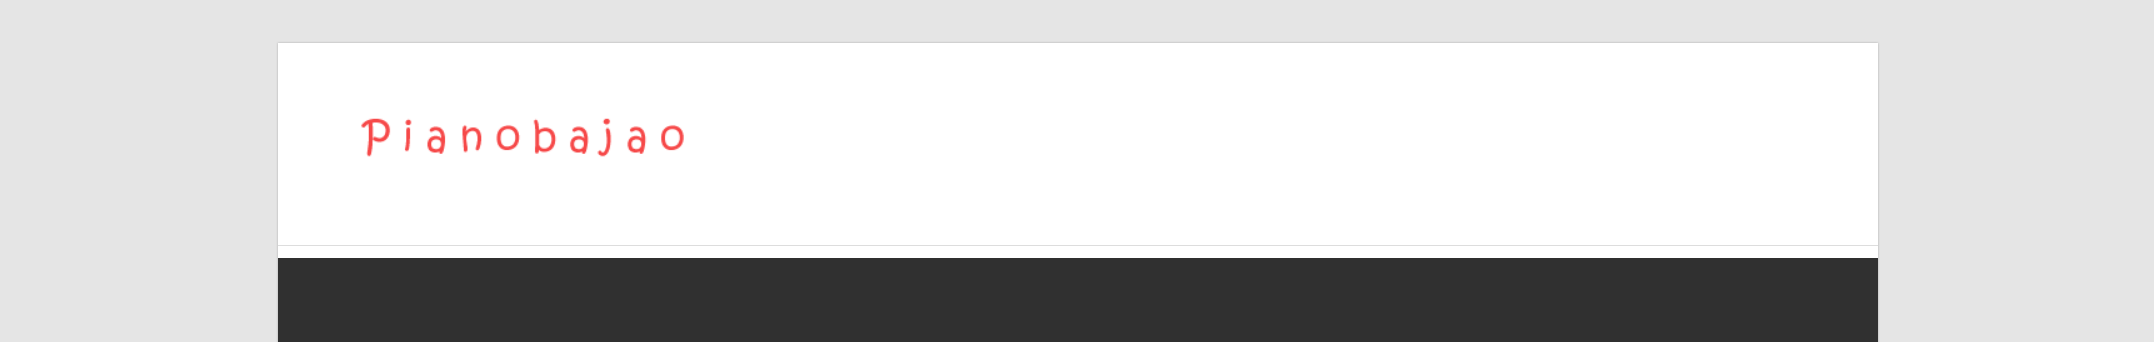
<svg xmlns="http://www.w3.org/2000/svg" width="2154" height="342">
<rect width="100%" height="100%" fill="#e5e5e5"/>
<path fill="#aaa" filter="blur(1px)" d="M278 43h1600v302H278z"/>
<path fill="#fff" d="M278 43h1600v215H278z"/>
<path fill="#ddd" d="M278 245h1600v1H278z"/>
<image href="1.png" x="361" y="118" width="323" height="39"/>
<path fill="#303030" d="M278 258h1600v84H278z"/>
</svg>
